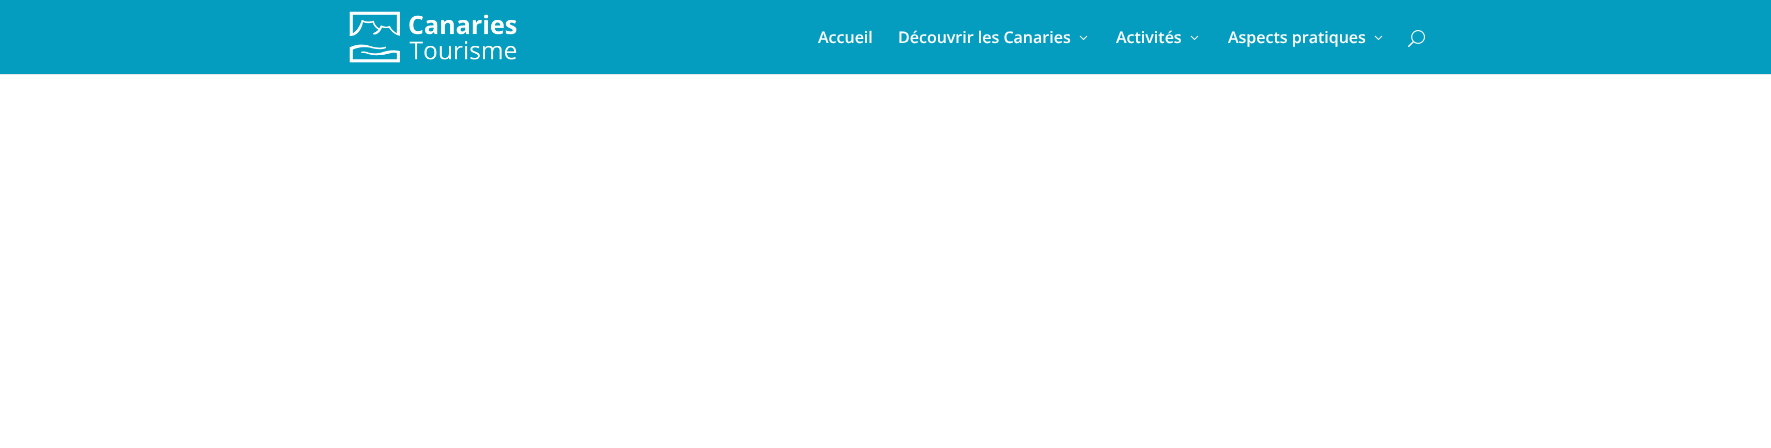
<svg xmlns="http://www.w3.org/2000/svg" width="1771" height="448">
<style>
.a{font:600 16px Open Sans;fill:#fff}
</style>
<rect width="100%" height="100%" fill="#fff"/>
<path fill="#e6e6e6" d="M0 74h1771v1H0z"/>
<path fill="#049dbf" d="M0 0h1771v74H0z"/>
<image href="1.png" x="349" y="11" width="168" height="52"/>
<image href="2.png" x="1079" y="35" width="9" height="5"/>
<image href="2.png" x="1190" y="35" width="9" height="5"/>
<image href="2.png" x="1374" y="35" width="9" height="5"/>
<image href="3.png" x="1408" y="30" width="17" height="18"/>
<text class="a" x="818" y="43">Accueil</text>
<text class="a" x="898" y="43">Découvrir les Canaries</text>
<text class="a" x="1116" y="43">Activités</text>
<text class="a" x="1228" y="43">Aspects pratiques</text>
</svg>
